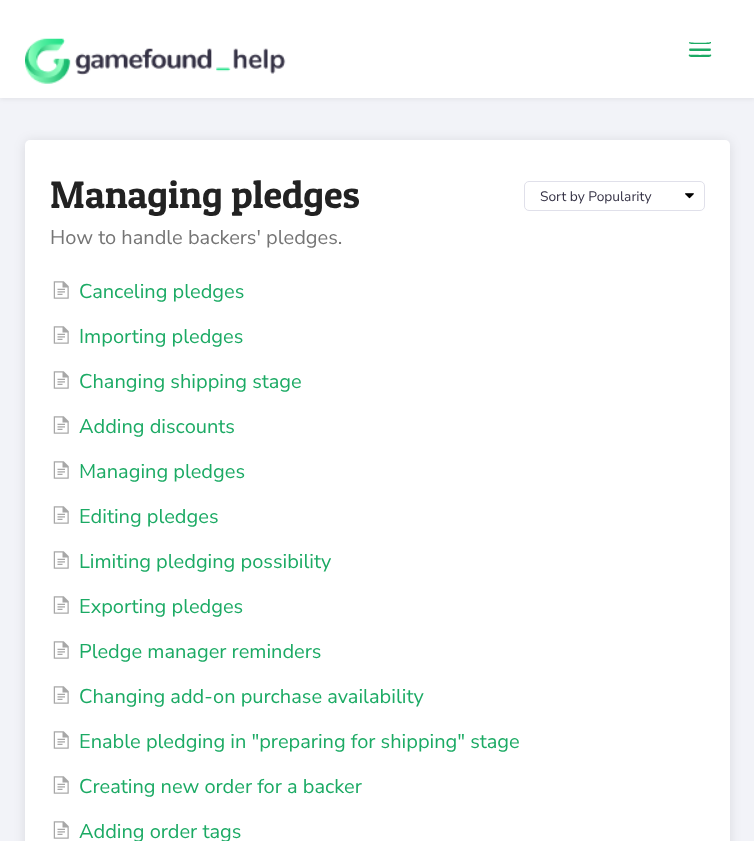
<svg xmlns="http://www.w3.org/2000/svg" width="754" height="841">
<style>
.a{font:38.5px Patua One;fill:#222}
.b{font:13.75px Nunito Sans;fill:#353245}
.c{font:20px Nunito Sans;fill:#757575}
.d{font:20px Nunito Sans;fill:#1baa64}
</style>
<rect width="100%" height="100%" fill="#f2f3f8"/>
<path fill="#00000012" filter="blur(2.5px)" d="M0 1h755v98H0z"/>
<path fill="#fff" d="M0 0h754v98H0z"/>
<image href="1.png" x="25" y="38" width="261" height="46"/>
<path fill="#1baa64" d="M689 42c-.5 2.5 4 2 4.5 2h13c.5 0 5 .5 4.5-2c-1 1-21 1-22 0zm.5 6.5l-.5 1.5c.5 1.5 3.5 1 4.5 1h13c1 0 4 .5 4.5-1l-.5-1.5zm-.5 6c-1.5 3 4 2.5 4.5 2.5h13c.5 0 6 .5 4.5-2.5c-1 .5-21 .5-22 0z"/>
<rect fill="#0000001a" filter="blur(6px)" x="25" y="141" width="705" height="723" rx="5"/>
<rect fill="#fff" x="25" y="140" width="705" height="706" rx="5"/>
<image href="2.png" x="685" y="193" width="9" height="6"/>
<rect fill="none" stroke="#e0e0ea" x="524.5" y="181.5" width="180" height="29" rx="4.5"/>
<image href="3.png" x="53" y="281" width="16" height="18"/>
<image href="3.png" x="53" y="326" width="16" height="18"/>
<image href="3.png" x="53" y="371" width="16" height="18"/>
<image href="3.png" x="53" y="416" width="16" height="18"/>
<image href="3.png" x="53" y="461" width="16" height="18"/>
<image href="3.png" x="53" y="506" width="16" height="18"/>
<image href="3.png" x="53" y="551" width="16" height="18"/>
<image href="3.png" x="53" y="596" width="16" height="18"/>
<image href="3.png" x="53" y="641" width="16" height="18"/>
<image href="3.png" x="53" y="686" width="16" height="18"/>
<image href="3.png" x="53" y="731" width="16" height="18"/>
<image href="3.png" x="53" y="776" width="16" height="18"/>
<image href="3.png" x="53" y="821" width="16" height="18"/>
<text class="a" x="50" y="208">Managing pledges</text>
<text class="b" x="540" y="201">Sort by Popularity</text>
<text class="c" x="50" y="244">How to handle backers' pledges.</text>
<text class="d" x="79" y="298">Canceling pledges</text>
<text class="d" x="79" y="343">Importing pledges</text>
<text class="d" x="79" y="388">Changing shipping stage</text>
<text class="d" x="79" y="433">Adding discounts</text>
<text class="d" x="79" y="478">Managing pledges</text>
<text class="d" x="79" y="523">Editing pledges</text>
<text class="d" x="79" y="568">Limiting pledging possibility</text>
<text class="d" x="79" y="613">Exporting pledges</text>
<text class="d" x="79" y="658">Pledge manager reminders</text>
<text class="d" x="79" y="703">Changing add-on purchase availability</text>
<text class="d" x="79" y="748">Enable pledging in "preparing for shipping" stage</text>
<text class="d" x="79" y="793">Creating new order for a backer</text>
<text class="d" x="79" y="838">Adding order tags</text>
</svg>
